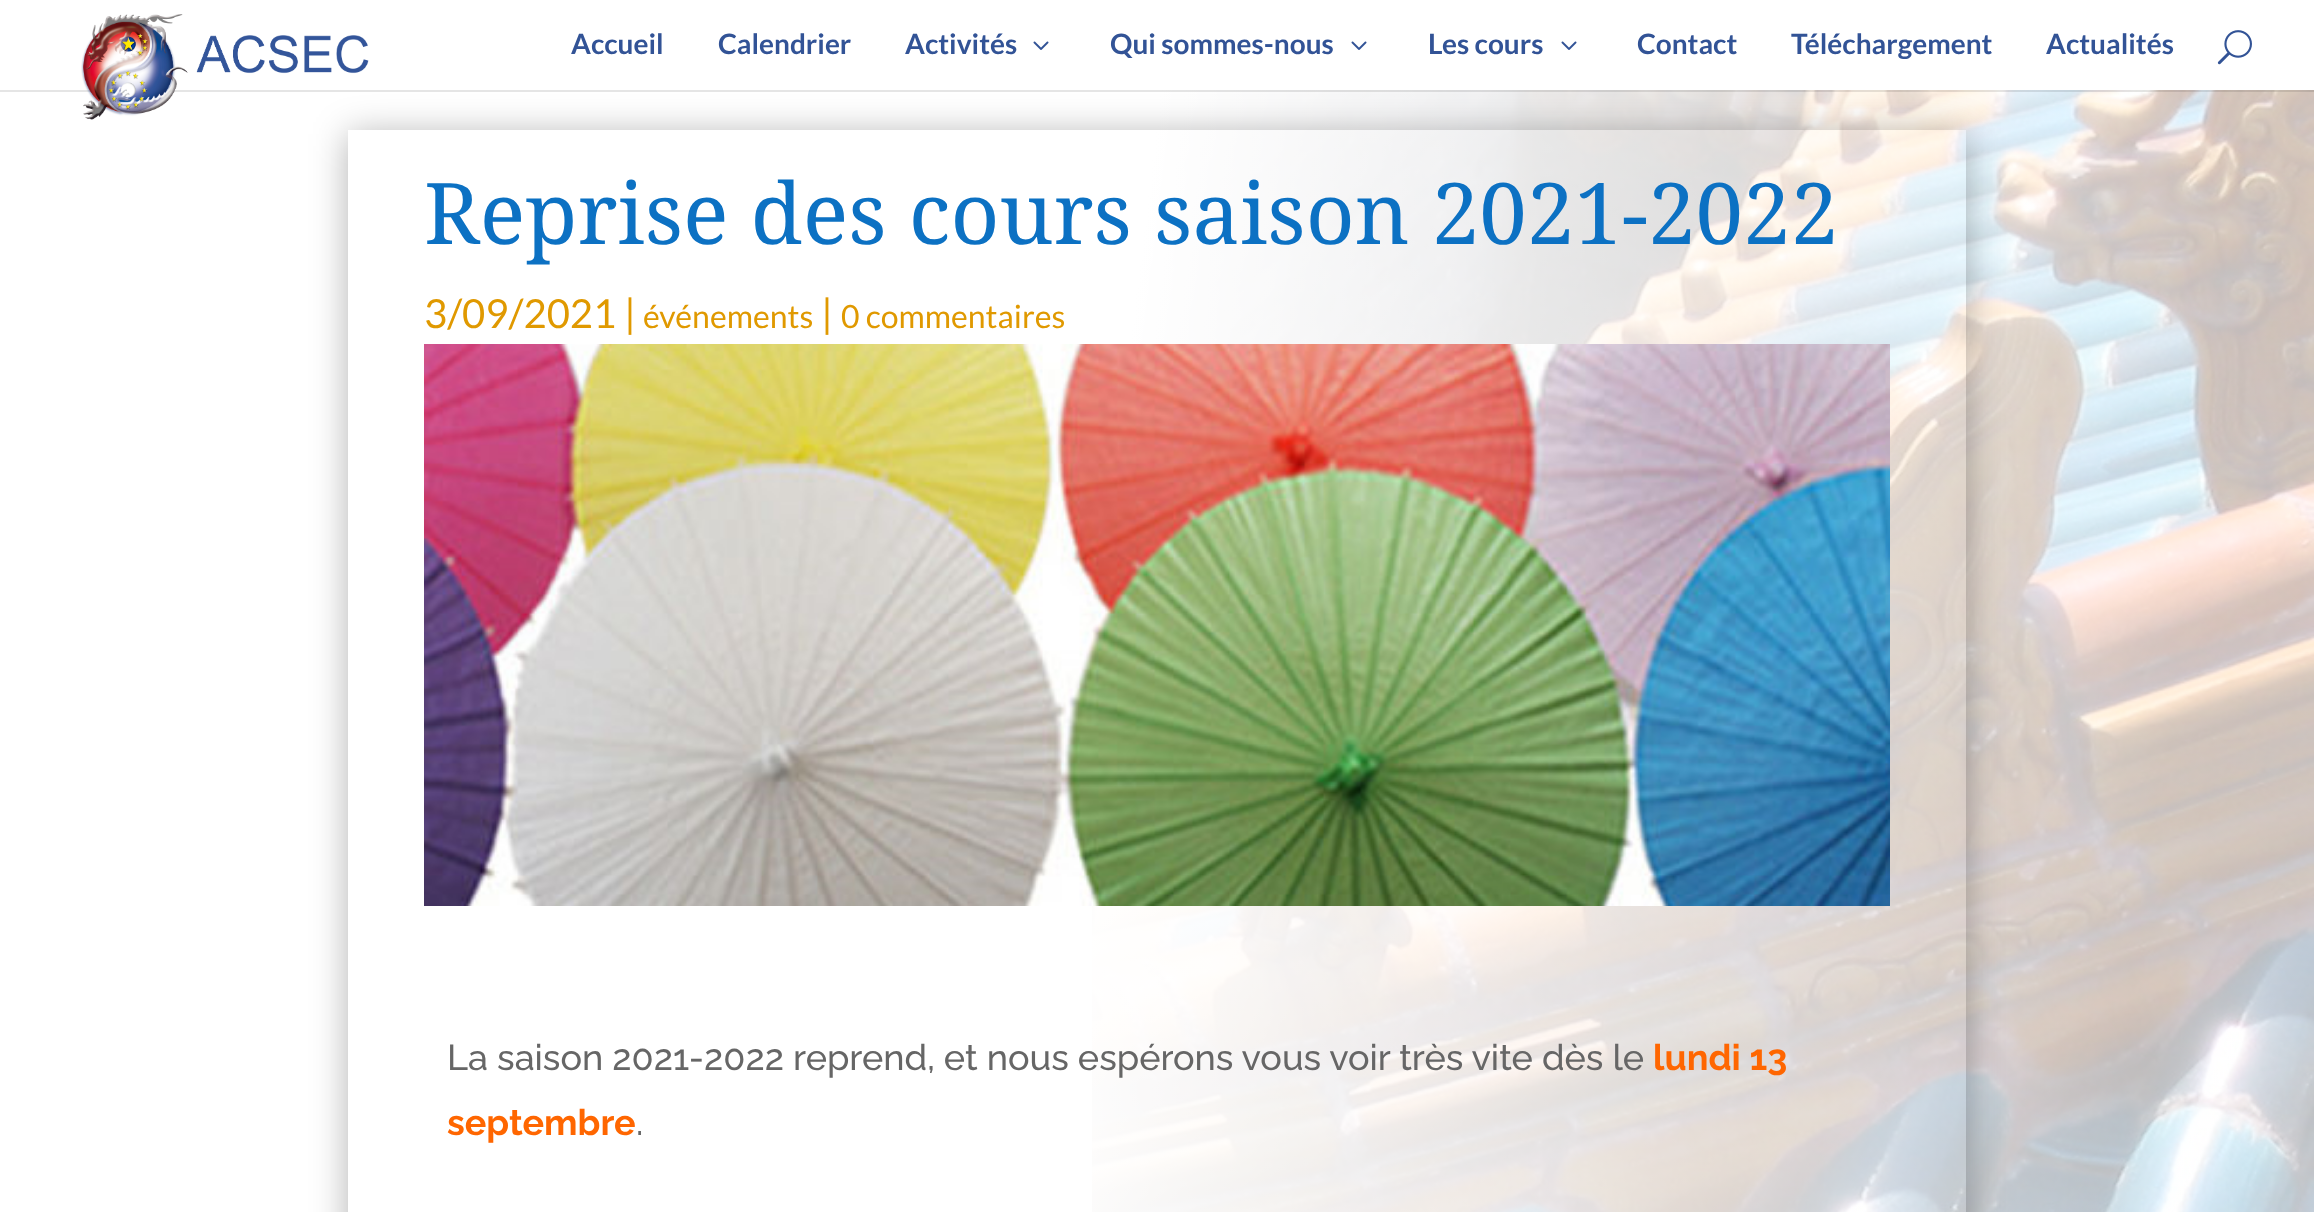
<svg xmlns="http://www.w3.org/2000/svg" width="2314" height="1212">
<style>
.a{font:bold 28px Lato;fill:#325396}
.b{font:85px Noto Serif;fill:#0c71c3}
.c{font:40px Lato;fill:#e09900}
.d{font:32px Lato;fill:#e09900}
.e{font:500 36px Raleway;fill:#666}
.f{font:bold 36px Raleway;fill:#f60}
</style>
<defs>
<clipPath id="clip1"><path d="M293 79h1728v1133h-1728zm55 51h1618v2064h-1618z" clip-rule="evenodd"/></clipPath>
</defs>
<rect width="100%" height="100%" fill="#fff"/>
<image href="4.png" x="1092" y="90" width="1222" height="1122"/>
<g clip-path="url(#clip1)">
<path fill="#0000004d" filter="blur(18px)" d="M348 134h1618v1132H348z"/>
</g>
<path fill="#0000001a" d="M0 90h2314v2H0z"/>
<image href="1.png" x="81" y="14" width="288" height="106"/>
<image href="2.png" x="1033" y="41" width="16" height="9"/>
<image href="2.png" x="1351" y="41" width="16" height="9"/>
<image href="2.png" x="1561" y="41" width="16" height="9"/>
<image href="3.png" x="2217" y="30" width="35" height="35"/>
<image href="5.png" x="424" y="344" width="1466" height="562"/>
<text class="a" x="571" y="54">Accueil</text>
<text class="a" x="718" y="54">Calendrier</text>
<text class="a" x="905" y="54">Activités</text>
<text class="a" x="1110" y="54">Qui sommes-nous</text>
<text class="a" x="1428" y="54">Les cours</text>
<text class="a" x="1637" y="54">Contact</text>
<text class="a" x="1791" y="54">Téléchargement</text>
<text class="a" x="2046" y="54">Actualités</text>
<text class="b" x="424" y="244">Reprise des cours saison 2021-2022</text>
<text class="c" x="424" y="328">3/09/2021 |</text>
<text class="d" x="643" y="328">événements</text>
<text class="c" x="821" y="328">|</text>
<text class="d" x="841" y="328">0 commentaires</text>
<text class="e" x="447" y="1070">La saison 2021-2022 reprend, et nous espérons vous voir très vite dès le</text>
<text class="f" x="1653" y="1070">lundi 13</text>
<text class="f" x="447" y="1135">septembre</text>
<text class="e" x="636" y="1135">.</text>
</svg>
